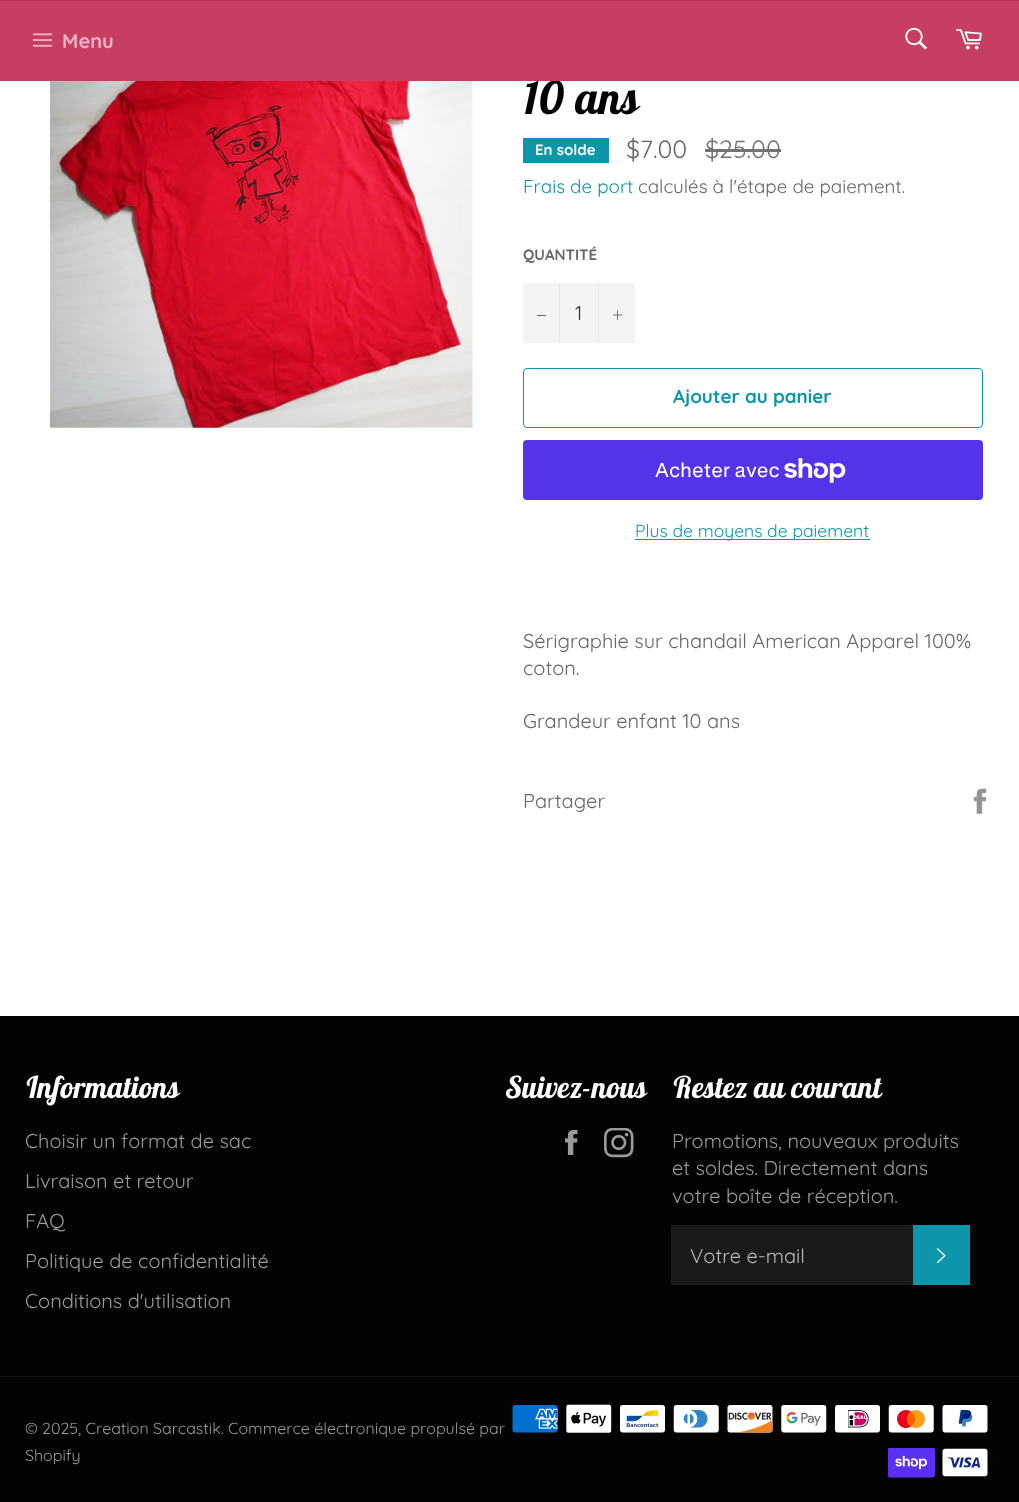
<svg xmlns="http://www.w3.org/2000/svg" width="1019" height="1502">
<style>*{font-kerning:none!important;font-variant-ligatures:none!important}</style>
<style>
.a{font:italic bold 45px Lobster Two;fill:#030303}
.b{font:bold 20px Quicksand;fill:#e9b2c1}
.c{font:bold 15px Quicksand;fill:#fff}
.d{font:25px Quicksand;fill:#666}
.e{font:25px Quicksand;fill:#737373}
.f{font:18.75px Quicksand;fill:#0b97a9}
.g{font:18.75px Quicksand;fill:#666}
.h{font:bold 15px Quicksand;fill:#666}
.i{font:20px Quicksand;fill:#333}
.j{font:bold 18.75px Quicksand;fill:#0b97a9}
.k{font:20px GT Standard;fill:#fff}
.l{font:17.5px Quicksand;fill:#0b97a9}
.m{font:20px Quicksand;fill:#666}
.n{font:italic bold 30px Lobster Two;fill:#fff}
.o{font:20px Quicksand;fill:#9a9a9a}
.p{font:20px Quicksand;fill:#bababa}
.q{font:16px Quicksand;fill:#9a9a9a}
</style>
<rect width="100%" height="100%" fill="#fff"/>
<path fill="#b83458" d="M0 0h1019v1H0z"/>
<image href="4.png" x="50" y="81" width="423" height="347"/>
<path fill="#0b97a9" d="M523 138h86v25H523z"/>
<path fill="#737373" d="M705 149h76v3H705z"/>
<path fill="#f4f4f4" d="M523 283h112v60H523z"/>
<path fill="#e7e7e7" d="M559 283h1v60H559z"/>
<path fill="#666" d="M537 315h9v1H537z"/>
<path fill="#e7e7e7" d="M598 283h1v60H598z"/>
<image href="5.png" x="613" y="310" width="10" height="10"/>
<rect fill="none" stroke="#0b97a9" x="523.5" y="368.5" width="459" height="59" rx="3.5"/>
<rect fill="#5433eb" x="523" y="440" width="460" height="60" rx="4"/>
<image href="6.png" x="784" y="458" width="62" height="25"/>
<path fill="#0b97a9" d="M635 539h235v1H635z"/>
<image href="7.png" x="973" y="788" width="14" height="26"/>
<path fill="#030303" d="M0 1016h1019v486H0z"/>
<image href="8.png" x="565" y="1130" width="13" height="25"/>
<image href="9.png" x="604" y="1128" width="30" height="30"/>
<path fill="#1a1a1a" d="M671 1225h242v60H671z"/>
<path fill="#0b97a9" d="M913 1225h57v60H913z"/>
<image href="10.png" x="936" y="1248" width="10" height="16"/>
<path fill="#101010" d="M0 1376h1019v1H0z"/>
<image href="11.png" x="512" y="1405" width="46" height="28"/>
<image href="12.png" x="566" y="1404" width="46" height="29"/>
<image href="13.png" x="620" y="1405" width="45" height="28"/>
<image href="14.png" x="673" y="1405" width="46" height="28"/>
<image href="15.png" x="727" y="1405" width="46" height="28"/>
<image href="16.png" x="781" y="1405" width="46" height="28"/>
<image href="17.png" x="835" y="1405" width="45" height="28"/>
<image href="18.png" x="888" y="1405" width="46" height="28"/>
<image href="19.png" x="942" y="1405" width="46" height="28"/>
<image href="20.png" x="888" y="1448" width="47" height="30"/>
<image href="21.png" x="942" y="1448" width="46" height="29"/>
<text class="a" x="523" y="114">10 ans</text>
<path fill="#c83e63" d="M0 1h1019v80H0z"/>
<image href="3.png" x="956" y="29" width="26" height="21"/>
<image href="2.png" x="905" y="27" width="22" height="23"/>
<image href="1.png" x="32" y="33" width="21" height="14"/>
<text class="b" x="62" y="48">Menu</text>
<text class="c" x="535" y="155">En solde</text>
<text class="d" x="626" y="158">$7.00</text>
<text class="e" x="705" y="158">$25.00</text>
<text class="f" x="523" y="193">Frais de port</text>
<text class="g" x="638" y="193">calculés à l'étape de paiement.</text>
<text class="h" x="523" y="260">QUANTITÉ</text>
<text class="i" x="575" y="320">1</text>
<text class="j" x="673" y="403">Ajouter au panier</text>
<text class="k" x="655" y="477">Acheter avec</text>
<text class="l" x="635" y="537">Plus de moyens de paiement</text>
<text class="m" x="523" y="648">Sérigraphie sur chandail American Apparel 100%</text>
<text class="m" x="523" y="675">coton.</text>
<text class="m" x="523" y="728">Grandeur enfant 10 ans</text>
<text class="m" x="523" y="808">Partager</text>
<text class="n" x="25" y="1098">Informations</text>
<text class="o" x="25" y="1148">Choisir un format de sac</text>
<text class="o" x="25" y="1188">Livraison et retour</text>
<text class="o" x="25" y="1228">FAQ</text>
<text class="o" x="25" y="1268">Politique de confidentialité</text>
<text class="o" x="25" y="1308">Conditions d'utilisation</text>
<text class="n" x="506" y="1098">Suivez-nous</text>
<text class="n" x="672" y="1098">Restez au courant</text>
<text class="o" x="672" y="1148">Promotions, nouveaux produits</text>
<text class="o" x="672" y="1175">et soldes. Directement dans</text>
<text class="o" x="672" y="1203">votre boîte de réception.</text>
<text class="p" x="690" y="1263">Votre e-mail</text>
<text class="q" x="25" y="1434">© 2025, Creation Sarcastik. Commerce électronique propulsé par</text>
<text class="q" x="25" y="1461">Shopify</text>
</svg>
